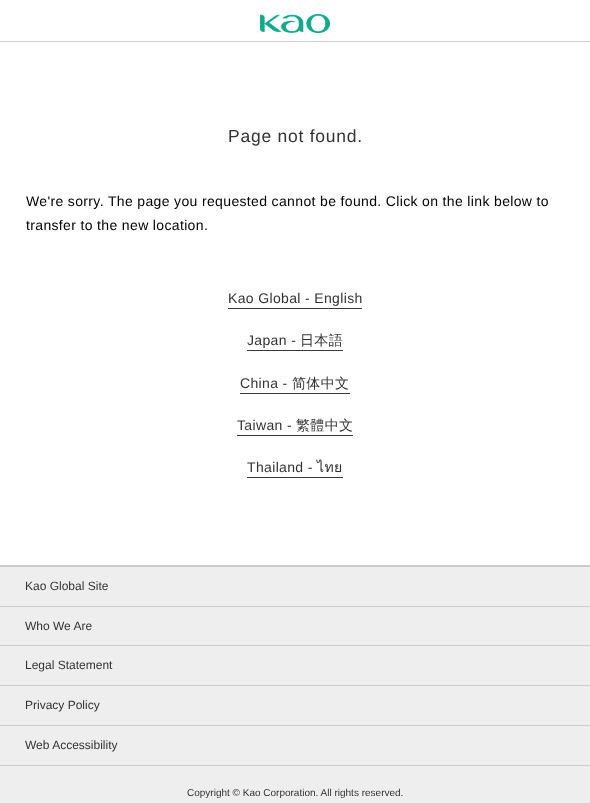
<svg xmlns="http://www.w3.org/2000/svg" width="590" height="803">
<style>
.a{font:17.5px Liberation Sans;letter-spacing:0.75px;fill:#333}
.b{font:14px Liberation Sans;letter-spacing:0.35px;fill:#000}
.c{font:14px Liberation Sans;letter-spacing:0.35px;fill:#333}
.d{font:500 14px WenQuanYi Zen Hei;letter-spacing:0.35px;fill:#333}
.e{font:14px Loma;letter-spacing:0.35px;fill:#333}
.f{font:12px Liberation Sans;fill:#333}
.g{font:10px Liberation Sans;fill:#333}
</style>
<rect width="100%" height="100%" fill="#fff"/>
<path fill="#ccc" d="M0 41h590v1H0z"/>
<image href="1.png" x="260" y="14" width="70" height="19"/>
<path fill="#3a3a3a" d="M228 308h134v1H228z"/>
<path fill="#3a3a3a" d="M247 350h96v1H247z"/>
<path fill="#3a3a3a" d="M240 393h110v1H240z"/>
<path fill="#3a3a3a" d="M237 435h116v1H237z"/>
<path fill="#3a3a3a" d="M247 477h96v1H247z"/>
<path fill="#eee" d="M0 567h590v236H0z"/>
<path fill="#ccc" d="M0 565h590v2H0z"/>
<path fill="#ccc" d="M0 765h590v1H0z"/>
<path fill="#ccc" d="M0 606h590v1H0z"/>
<path fill="#ccc" d="M0 645h590v1H0z"/>
<path fill="#ccc" d="M0 685h590v1H0z"/>
<path fill="#ccc" d="M0 725h590v1H0z"/>
<text class="a" x="228" y="142">Page not found.</text>
<text class="b" x="26" y="206">We're sorry. The page you requested cannot be found. Click on the link below to</text>
<text class="b" x="26" y="230">transfer to the new location.</text>
<text class="c" x="228" y="303">Kao Global - English</text>
<text class="c" x="247" y="345">Japan -</text>
<text class="d" x="300" y="345">日本語</text>
<text class="c" x="240" y="388">China -</text>
<text class="d" x="292" y="388">简体中文</text>
<text class="c" x="237" y="430">Taiwan -</text>
<text class="d" x="296" y="430">繁體中文</text>
<text class="c" x="247" y="472">Thailand -</text>
<text class="e" x="317" y="472">ไทย</text>
<text class="f" x="25" y="590">Kao Global Site</text>
<text class="f" x="25" y="630">Who We Are</text>
<text class="f" x="25" y="669">Legal Statement</text>
<text class="f" x="25" y="709">Privacy Policy</text>
<text class="f" x="25" y="749">Web Accessibility</text>
<text class="g" x="187" y="796">Copyright © Kao Corporation. All rights reserved.</text>
</svg>
